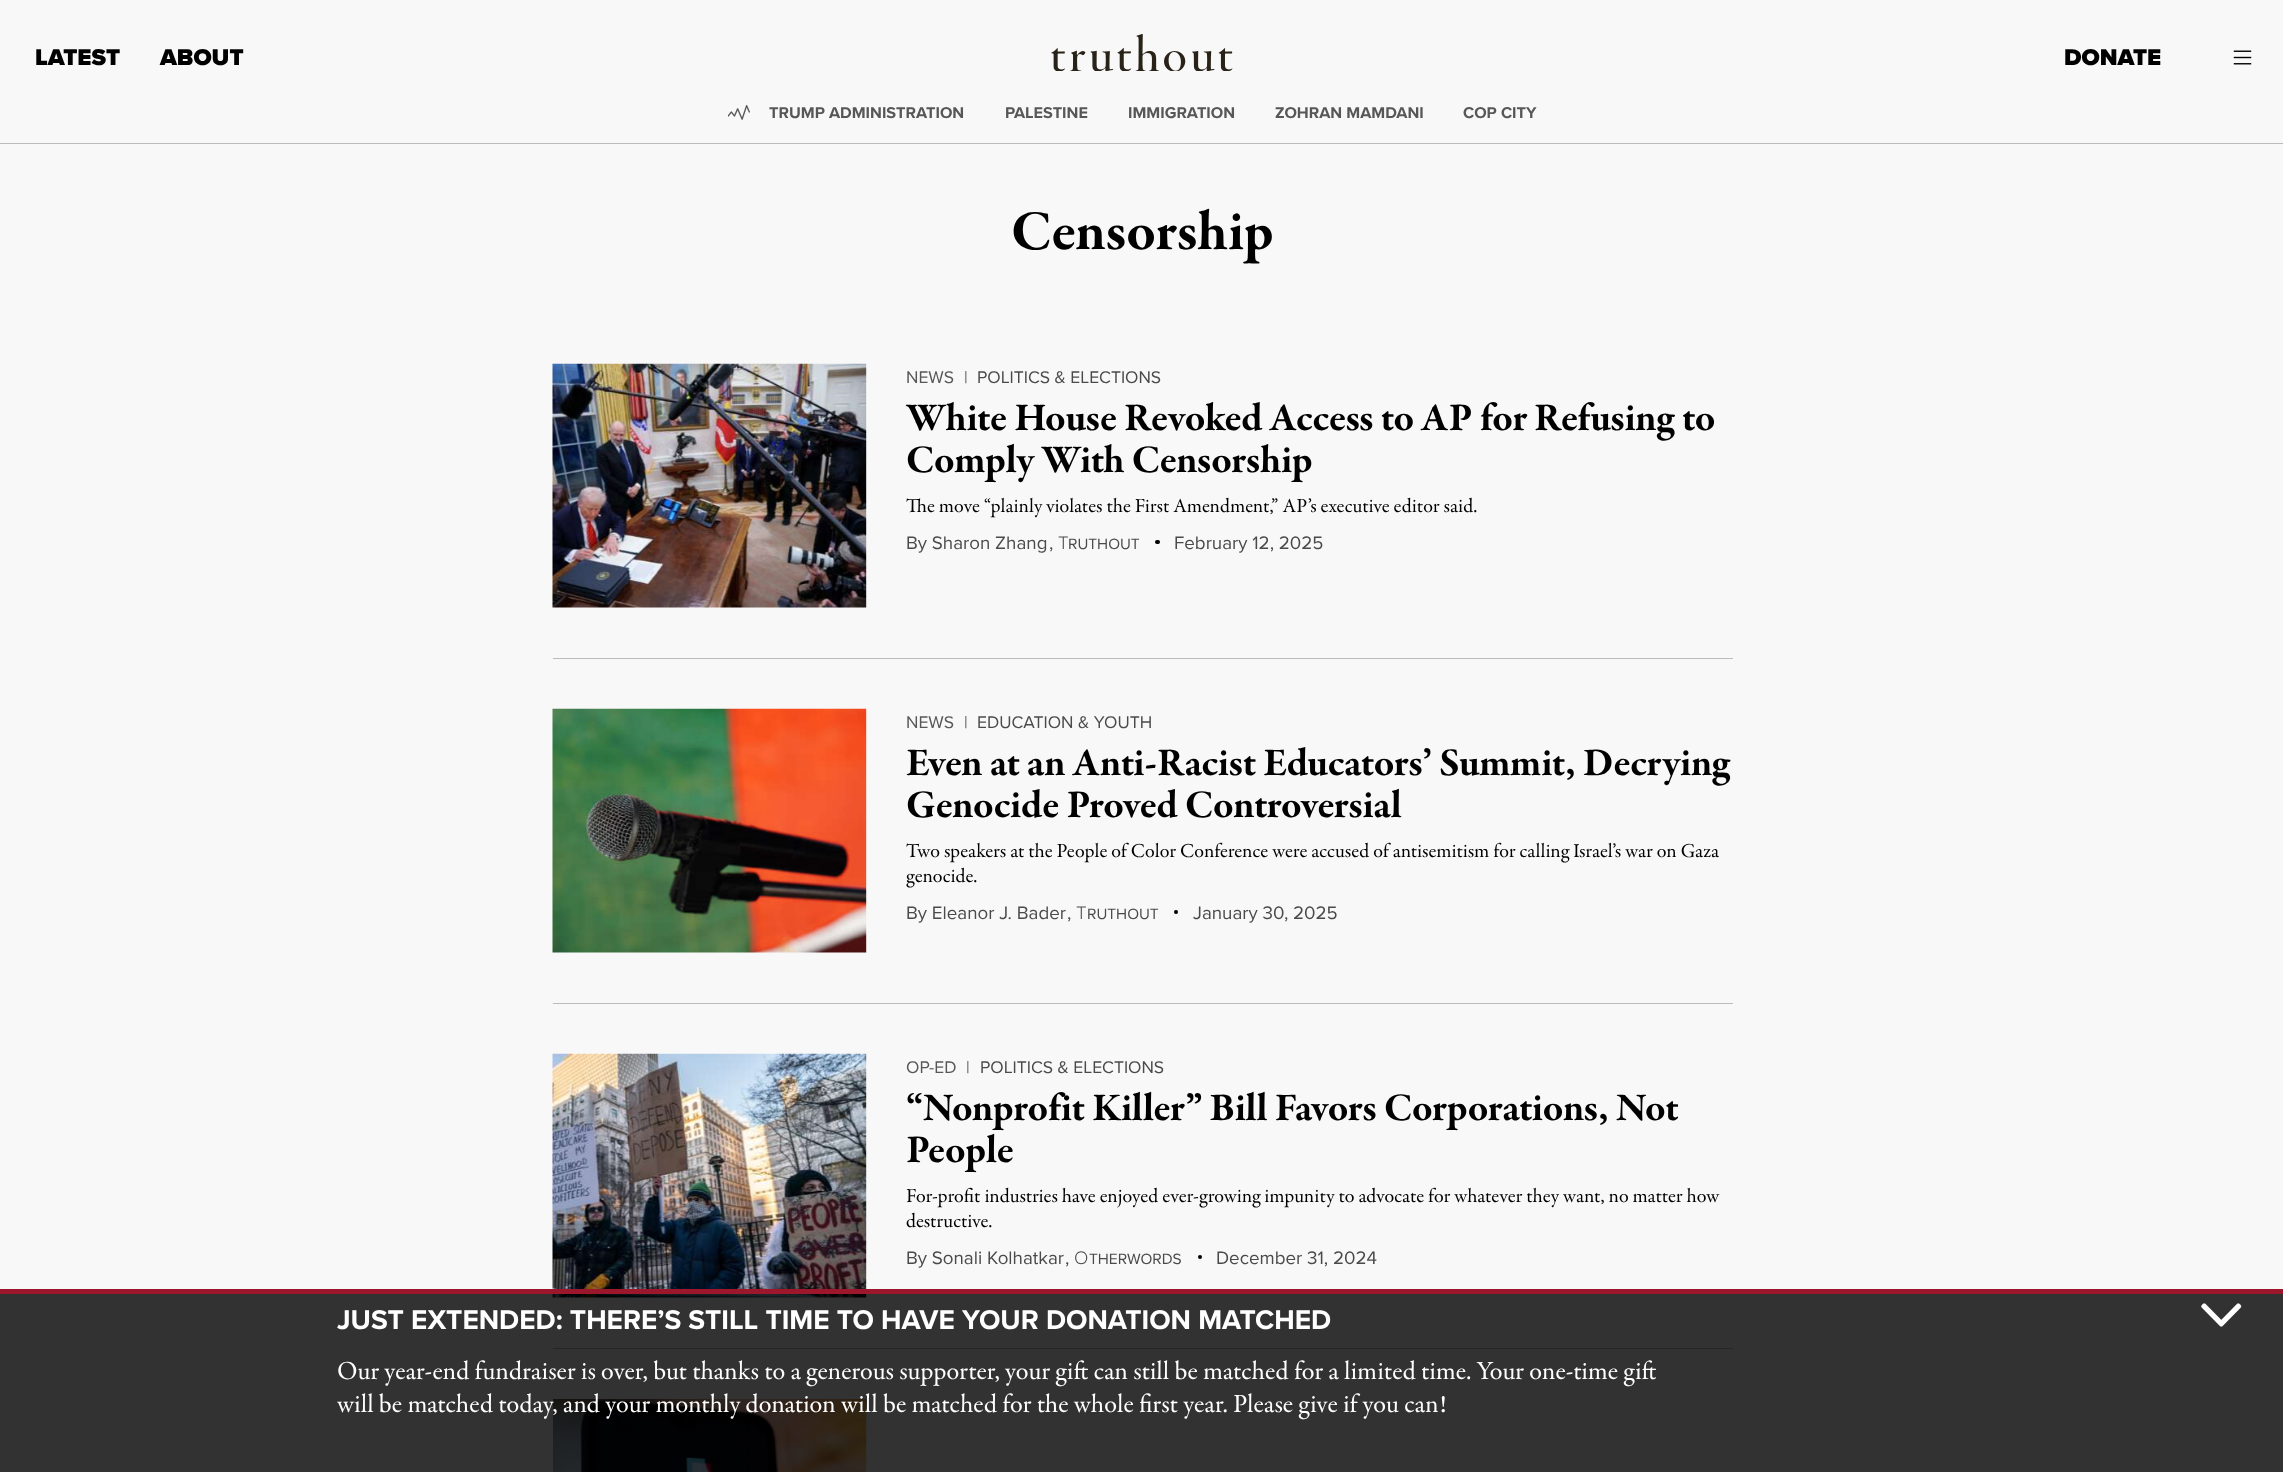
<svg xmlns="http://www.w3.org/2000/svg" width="2283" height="1472">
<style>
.a{font:900 23.75px Proxima Nova;fill:#000}
.b{font:bold 16.25px Proxima Nova;fill:#575757}
.c{font:bold 57.5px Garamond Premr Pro;fill:#000}
.d{font:17.5px Proxima Nova;fill:#575757}
.e{font:17.5px Proxima Nova;fill:#4a4a4a}
.f{font:bold 40px Garamond Premr Pro;letter-spacing:-0.2px;fill:#000}
.g{font:20px Garamond Premr Pro;fill:#000}
.h{font:18.75px Proxima Nova;fill:#4a4a4a}
.i{font:300 18.75px Proxima Nova;fill:#4a4a4a}
.j{font:15.5px Proxima Nova;fill:#4a4a4a}
.k{font:bold 28px Proxima Nova;fill:#fff}
.l{font:26.25px Garamond Premr Pro;fill:#fff}
</style>
<rect width="100%" height="100%" fill="#f8f8f8"/>
<image href="1.png" x="1051" y="34" width="182" height="37"/>
<image href="2.png" x="2233" y="50" width="19" height="15"/>
<path fill="#bcbcbc" d="M0 143h2283v1H0z"/>
<image href="3.png" x="728" y="105" width="22" height="15"/>
<path fill="#bcbcbc" d="M553 658h1180v1H553z"/>
<image href="4.png" x="552" y="363" width="315" height="245"/>
<rect fill="#000" x="1155" y="540" width="5" height="4" rx="2"/>
<path fill="#bcbcbc" d="M553 1003h1180v1H553z"/>
<image href="5.png" x="552" y="708" width="315" height="245"/>
<circle fill="#000" cx="1176" cy="912" r="2"/>
<path fill="#bcbcbc" d="M553 1348h1180v1H553z"/>
<image href="6.png" x="552" y="1053" width="315" height="245"/>
<circle fill="#000" cx="1200" cy="1257" r="2"/>
<image href="7.png" x="553" y="1399" width="314" height="73"/>
<path fill="#000000cc" d="M0 1294h2283v178H0z"/>
<path fill="#9c162c" d="M0 1289h2283v5H0z"/>
<image href="8.png" x="2201" y="1303" width="41" height="24"/>
<text class="a" x="35" y="65">LATEST</text>
<text class="a" x="160" y="65">ABOUT</text>
<text class="a" x="2064" y="65">DONATE</text>
<text class="b" x="769" y="118">TRUMP ADMINISTRATION</text>
<text class="b" x="1005" y="118">PALESTINE</text>
<text class="b" x="1128" y="118">IMMIGRATION</text>
<text class="b" x="1275" y="118">ZOHRAN MAMDANI</text>
<text class="b" x="1463" y="118">COP CITY</text>
<text class="c" x="1011" y="249">Censorship</text>
<text class="d" x="906" y="383">NEWS</text>
<text class="d" x="964" y="383">|</text>
<text class="e" x="977" y="383">POLITICS &amp; ELECTIONS</text>
<text class="f" x="906" y="430">White House Revoked Access to AP for Refusing to</text>
<text class="f" x="906" y="472">Comply With Censorship</text>
<text class="g" x="906" y="512">The move “plainly violates the First Amendment,” AP’s executive editor said.</text>
<text class="h" x="906" y="549">By Sharon Zhang</text>
<text class="h" x="1049" y="549">,</text>
<text class="i" x="1058" y="549">T</text>
<text class="j" x="1068" y="549">RUTHOUT</text>
<text class="h" x="1174" y="549">February 12, 2025</text>
<text class="d" x="906" y="728">NEWS</text>
<text class="d" x="964" y="728">|</text>
<text class="e" x="977" y="728">EDUCATION &amp; YOUTH</text>
<text class="f" x="906" y="775">Even at an Anti-Racist Educators’ Summit, Decrying</text>
<text class="f" x="906" y="817">Genocide Proved Controversial</text>
<text class="g" x="906" y="857">Two speakers at the People of Color Conference were accused of antisemitism for calling Israel’s war on Gaza</text>
<text class="g" x="906" y="882">genocide.</text>
<text class="h" x="906" y="919">By Eleanor J. Bader</text>
<text class="h" x="1067" y="919">,</text>
<text class="i" x="1076" y="919">T</text>
<text class="j" x="1087" y="919">RUTHOUT</text>
<text class="h" x="1193" y="919">January 30, 2025</text>
<text class="d" x="906" y="1073">OP-ED</text>
<text class="d" x="966" y="1073">|</text>
<text class="e" x="980" y="1073">POLITICS &amp; ELECTIONS</text>
<text class="f" x="906" y="1120">“Nonprofit Killer” Bill Favors Corporations, Not</text>
<text class="f" x="906" y="1162">People</text>
<text class="g" x="906" y="1202">For-profit industries have enjoyed ever-growing impunity to advocate for whatever they want, no matter how</text>
<text class="g" x="906" y="1227">destructive.</text>
<text class="h" x="906" y="1264">By Sonali Kolhatkar</text>
<text class="h" x="1065" y="1264">,</text>
<text class="i" x="1074" y="1264">O</text>
<text class="j" x="1089" y="1264">THERWORDS</text>
<text class="h" x="1216" y="1264">December 31, 2024</text>
<text class="k" x="337" y="1329">JUST EXTENDED: THERE’S STILL TIME TO HAVE YOUR DONATION MATCHED</text>
<text class="l" x="337" y="1379">Our year-end fundraiser is over, but thanks to a generous supporter, your gift can still be matched for a limited time. Your one-time gift</text>
<text class="l" x="337" y="1412">will be matched today, and your monthly donation will be matched for the whole first year. Please give if you can!</text>
</svg>
